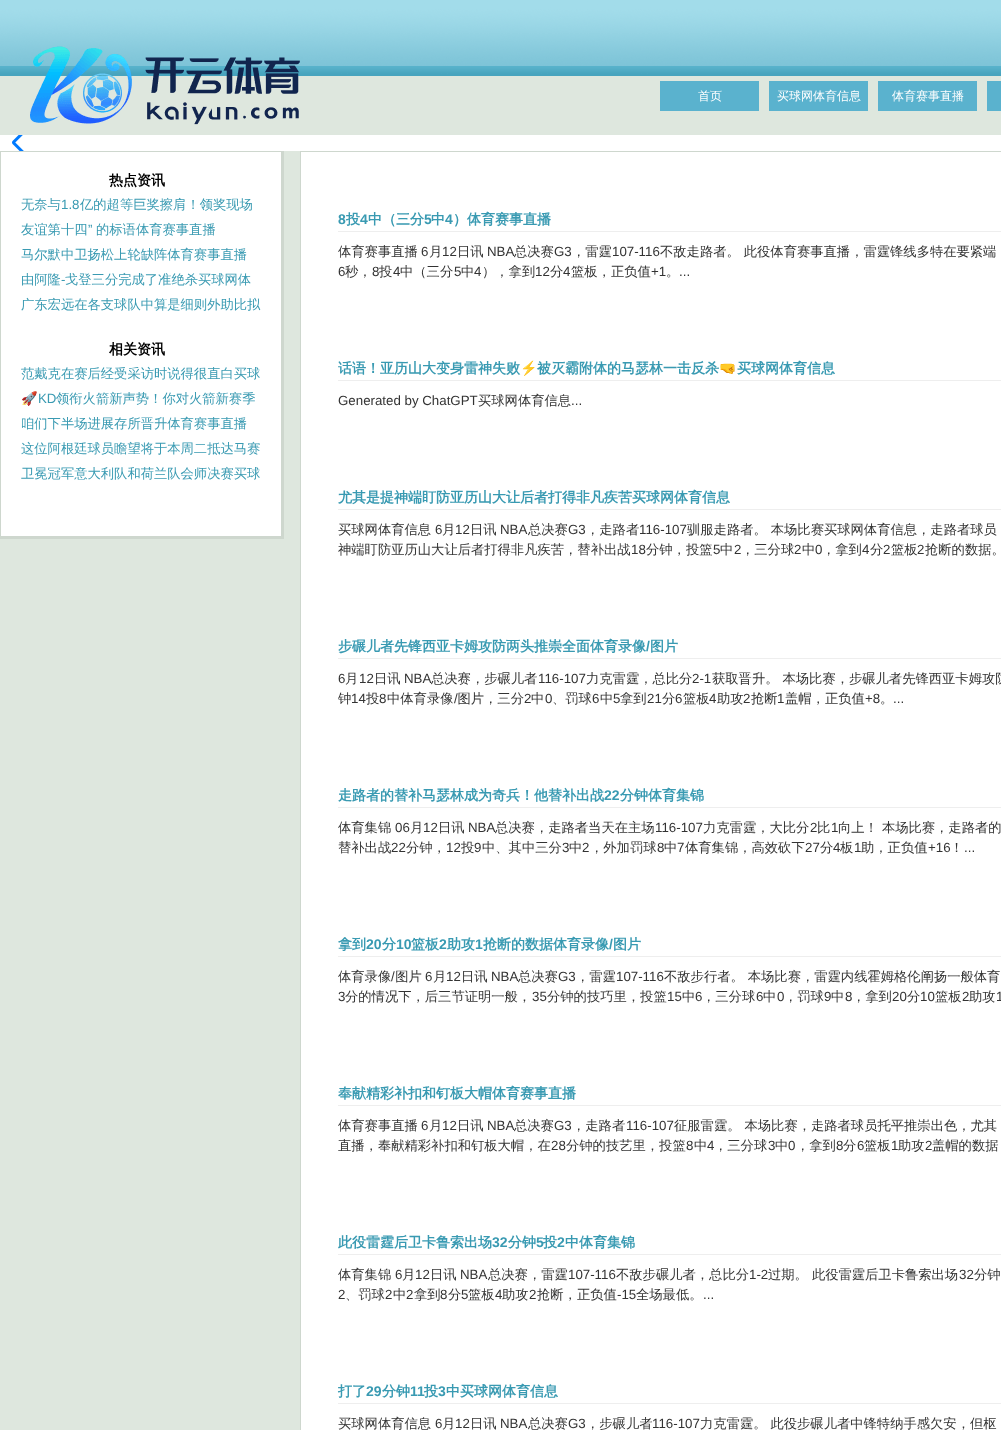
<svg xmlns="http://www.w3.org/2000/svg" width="1001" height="1430">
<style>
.a{font:500 12px WenQuanYi Zen Hei;fill:#fff}
.b{font:bold 14px WenQuanYi Zen Hei;fill:#000}
.c{font:500 13.3px WenQuanYi Zen Hei;fill:#399ab2}
.d{font:13.3px Liberation Sans;fill:#399ab2}
.e{font:13.3px Noto Color Emoji;fill:#399ab2}
.f{font:bold 14px Liberation Sans;fill:#399ab2}
.g{font:bold 14px WenQuanYi Zen Hei;fill:#399ab2}
.h{font:500 13.3px WenQuanYi Zen Hei;fill:#333}
.i{font:13.3px Liberation Sans;fill:#333}
.j{font:bold 14px Noto Color Emoji;fill:#399ab2}
</style>
<rect width="100%" height="100%" fill="#dee7de"/>
<image href="1.png" x="0" y="0" width="1001" height="76"/>
<image href="2.png" x="30" y="46" width="270" height="79"/>
<path fill="#5ab2ce" d="M660 81h99v30H660z"/>
<path fill="#5ab2ce" d="M769 81h99v30H769z"/>
<path fill="#5ab2ce" d="M878 81h99v30H878z"/>
<path fill="#5ab2ce" d="M987 81h14v30H987z"/>
<path fill="#fff" d="M0 135h1001v16H0z"/>
<image href="3.png" x="12" y="135" width="12" height="16"/>
<path fill="#fff" d="M1 152h280v384H1z"/>
<path fill="#ced7ce" d="M0 151h284v1H0z"/>
<path fill="#ced7ce" d="M281 151h3v388H281z"/>
<path fill="#ced7ce" d="M0 536h284v3H0z"/>
<path fill="#ced7ce" d="M0 151h1v388H0z"/>
<path fill="#fff" d="M301 152h700v1278H301z"/>
<path fill="#ced7ce" d="M300 151h701v1H300z"/>
<path fill="#ced7ce" d="M300 151h1v1279H300z"/>
<path fill="#eee" d="M338 231h663v1H338z"/>
<path fill="#eee" d="M338 380h663v1H338z"/>
<path fill="#eee" d="M338 509h663v1H338z"/>
<path fill="#eee" d="M338 658h663v1H338z"/>
<path fill="#eee" d="M338 807h663v1H338z"/>
<path fill="#eee" d="M338 956h663v1H338z"/>
<path fill="#eee" d="M338 1105h663v1H338z"/>
<path fill="#eee" d="M338 1254h663v1H338z"/>
<path fill="#eee" d="M338 1403h663v1H338z"/>
<text class="a" x="698" y="100">首页</text>
<text class="a" x="777" y="100">买球网体育信息</text>
<text class="a" x="892" y="100">体育赛事直播</text>
<text class="b" x="109" y="185">热点资讯</text>
<text class="c" x="21" y="209">无奈与</text>
<text class="d" x="61" y="209">1.8</text>
<text class="c" x="80" y="209">亿的超等巨奖擦肩！领奖现场</text>
<text class="c" x="21" y="234">友谊第十四</text>
<text class="d" x="88" y="234">”</text>
<text class="c" x="96" y="234">的标语体育赛事直播</text>
<text class="c" x="21" y="259">马尔默中卫扬松上轮缺阵体育赛事直播</text>
<text class="c" x="21" y="284">由阿隆</text>
<text class="d" x="61" y="284">-</text>
<text class="c" x="65" y="284">戈登三分完成了准绝杀买球网体</text>
<text class="c" x="21" y="309">广东宏远在各支球队中算是细则外助比拟</text>
<text class="b" x="109" y="354">相关资讯</text>
<text class="c" x="21" y="378">范戴克在赛后经受采访时说得很直白买球</text>
<text class="e" x="21" y="403">🚀</text>
<text class="d" x="38" y="403">KD</text>
<text class="c" x="56" y="403">领衔火箭新声势！你对火箭新赛季</text>
<text class="c" x="21" y="428">咱们下半场进展存所晋升体育赛事直播</text>
<text class="c" x="21" y="453">这位阿根廷球员瞻望将于本周二抵达马赛</text>
<text class="c" x="21" y="478">卫冕冠军意大利队和荷兰队会师决赛买球</text>
<text class="f" x="338" y="224">8</text>
<text class="g" x="346" y="224">投</text>
<text class="f" x="360" y="224">4</text>
<text class="g" x="368" y="224">中（三分</text>
<text class="f" x="424" y="224">5</text>
<text class="g" x="431" y="224">中</text>
<text class="f" x="445" y="224">4</text>
<text class="g" x="453" y="224">）体育赛事直播</text>
<text class="h" x="338" y="256">体育赛事直播</text>
<text class="i" x="421" y="256">6</text>
<text class="h" x="429" y="256">月</text>
<text class="i" x="442" y="256">12</text>
<text class="h" x="457" y="256">日讯</text>
<text class="i" x="487" y="256">NBA</text>
<text class="h" x="514" y="256">总决赛</text>
<text class="i" x="554" y="256">G3</text>
<text class="h" x="572" y="256">，雷霆</text>
<text class="i" x="612" y="256">107-116</text>
<text class="h" x="660" y="256">不敌走路者。 此役体育赛事直播，雷霆锋线多特在要紧端</text>
<text class="i" x="338" y="276">6</text>
<text class="h" x="345" y="276">秒，</text>
<text class="i" x="372" y="276">8</text>
<text class="h" x="379" y="276">投</text>
<text class="i" x="393" y="276">4</text>
<text class="h" x="400" y="276">中（三分</text>
<text class="i" x="454" y="276">5</text>
<text class="h" x="461" y="276">中</text>
<text class="i" x="474" y="276">4</text>
<text class="h" x="482" y="276">），拿到</text>
<text class="i" x="535" y="276">12</text>
<text class="h" x="550" y="276">分</text>
<text class="i" x="563" y="276">4</text>
<text class="h" x="571" y="276">篮板，正负值</text>
<text class="i" x="651" y="276">+1</text>
<text class="h" x="666" y="276">。</text>
<text class="i" x="679" y="276">...</text>
<text class="g" x="338" y="373">话语！亚历山大变身雷神失败</text>
<text class="j" x="520" y="373">⚡️</text>
<text class="g" x="537" y="373">被灭霸附体的马瑟林一击反杀</text>
<text class="j" x="719" y="373">🤜</text>
<text class="g" x="737" y="373">买球网体育信息</text>
<text class="i" x="338" y="405">Generated by ChatGPT</text>
<text class="h" x="478" y="405">买球网体育信息</text>
<text class="i" x="571" y="405">...</text>
<text class="g" x="338" y="502">尤其是提神端盯防亚历山大让后者打得非凡疾苦买球网体育信息</text>
<text class="h" x="338" y="534">买球网体育信息</text>
<text class="i" x="435" y="534">6</text>
<text class="h" x="442" y="534">月</text>
<text class="i" x="455" y="534">12</text>
<text class="h" x="470" y="534">日讯</text>
<text class="i" x="500" y="534">NBA</text>
<text class="h" x="528" y="534">总决赛</text>
<text class="i" x="568" y="534">G3</text>
<text class="h" x="586" y="534">，走路者</text>
<text class="i" x="639" y="534">116-107</text>
<text class="h" x="687" y="534">驯服走路者。 本场比赛买球网体育信息，走路者球员</text>
<text class="h" x="338" y="554">神端盯防亚历山大让后者打得非凡疾苦，替补出战</text>
<text class="i" x="631" y="554">18</text>
<text class="h" x="646" y="554">分钟，投篮</text>
<text class="i" x="713" y="554">5</text>
<text class="h" x="720" y="554">中</text>
<text class="i" x="734" y="554">2</text>
<text class="h" x="741" y="554">，三分球</text>
<text class="i" x="794" y="554">2</text>
<text class="h" x="802" y="554">中</text>
<text class="i" x="815" y="554">0</text>
<text class="h" x="822" y="554">，拿到</text>
<text class="i" x="862" y="554">4</text>
<text class="h" x="870" y="554">分</text>
<text class="i" x="883" y="554">2</text>
<text class="h" x="891" y="554">篮板</text>
<text class="i" x="917" y="554">2</text>
<text class="h" x="925" y="554">抢断的数据。</text>
<text class="g" x="338" y="651">步碾儿者先锋西亚卡姆攻防两头推崇全面体育录像</text>
<text class="f" x="646" y="651">/</text>
<text class="g" x="650" y="651">图片</text>
<text class="i" x="338" y="683">6</text>
<text class="h" x="345" y="683">月</text>
<text class="i" x="359" y="683">12</text>
<text class="h" x="374" y="683">日讯</text>
<text class="i" x="404" y="683">NBA</text>
<text class="h" x="431" y="683">总决赛，步碾儿者</text>
<text class="i" x="538" y="683">116-107</text>
<text class="h" x="586" y="683">力克雷霆，总比分</text>
<text class="i" x="692" y="683">2-1</text>
<text class="h" x="712" y="683">获取晋升。 本场比赛，步碾儿者先锋西亚卡姆攻防</text>
<text class="h" x="338" y="703">钟</text>
<text class="i" x="351" y="703">14</text>
<text class="h" x="366" y="703">投</text>
<text class="i" x="379" y="703">8</text>
<text class="h" x="387" y="703">中体育录像 图片，三分</text>
<text class="h" x="531" y="703">中</text>
<text class="h" x="552" y="703">、罚球</text>
<text class="h" x="600" y="703">中</text>
<text class="h" x="620" y="703">拿到</text>
<text class="h" x="683" y="703">篮板</text>
<text class="h" x="785" y="703">盖帽，正负值</text>
<text class="i" x="454" y="703">/</text>
<text class="i" x="524" y="703">2</text>
<text class="i" x="545" y="703">0</text>
<text class="i" x="592" y="703">6</text>
<text class="i" x="613" y="703">5</text>
<text class="i" x="647" y="703">21</text>
<text class="h" x="662" y="703">分</text>
<text class="i" x="675" y="703">6</text>
<text class="i" x="709" y="703">4</text>
<text class="h" x="717" y="703">助攻</text>
<text class="i" x="743" y="703">2</text>
<text class="h" x="751" y="703">抢断</text>
<text class="i" x="777" y="703">1</text>
<text class="i" x="865" y="703">+8</text>
<text class="h" x="880" y="703">。</text>
<text class="i" x="893" y="703">...</text>
<text class="g" x="338" y="800">走路者的替补马瑟林成为奇兵！他替补出战</text>
<text class="f" x="604" y="800">22</text>
<text class="g" x="620" y="800">分钟体育集锦</text>
<text class="h" x="338" y="832">体育集锦</text>
<text class="i" x="395" y="832">06</text>
<text class="h" x="410" y="832">月</text>
<text class="i" x="423" y="832">12</text>
<text class="h" x="438" y="832">日讯</text>
<text class="i" x="468" y="832">NBA</text>
<text class="h" x="495" y="832">总决赛，走路者当天在主场</text>
<text class="i" x="655" y="832">116-107</text>
<text class="h" x="703" y="832">力克雷霆，大比分</text>
<text class="i" x="810" y="832">2</text>
<text class="h" x="817" y="832">比</text>
<text class="i" x="831" y="832">1</text>
<text class="h" x="838" y="832">向上！ 本场比赛，走路者的</text>
<text class="h" x="338" y="852">替补出战</text>
<text class="i" x="391" y="852">22</text>
<text class="h" x="406" y="852">分钟，</text>
<text class="i" x="446" y="852">12</text>
<text class="h" x="461" y="852">投</text>
<text class="i" x="474" y="852">9</text>
<text class="h" x="482" y="852">中、其中三分</text>
<text class="i" x="562" y="852">3</text>
<text class="h" x="569" y="852">中</text>
<text class="i" x="582" y="852">2</text>
<text class="h" x="590" y="852">，外加罚球</text>
<text class="i" x="657" y="852">8</text>
<text class="h" x="664" y="852">中</text>
<text class="i" x="677" y="852">7</text>
<text class="h" x="685" y="852">体育集锦，高效砍下</text>
<text class="i" x="805" y="852">27</text>
<text class="h" x="820" y="852">分</text>
<text class="i" x="833" y="852">4</text>
<text class="h" x="840" y="852">板</text>
<text class="i" x="854" y="852">1</text>
<text class="h" x="861" y="852">助，正负值</text>
<text class="i" x="928" y="852">+16</text>
<text class="h" x="950" y="852">！</text>
<text class="i" x="964" y="852">...</text>
<text class="g" x="338" y="949">拿到</text>
<text class="f" x="366" y="949">20</text>
<text class="g" x="382" y="949">分</text>
<text class="f" x="396" y="949">10</text>
<text class="g" x="411" y="949">篮板</text>
<text class="f" x="439" y="949">2</text>
<text class="g" x="447" y="949">助攻</text>
<text class="f" x="475" y="949">1</text>
<text class="g" x="483" y="949">抢断的数据体育录像</text>
<text class="f" x="609" y="949">/</text>
<text class="g" x="613" y="949">图片</text>
<text class="h" x="338" y="981">体育录像 图片</text>
<text class="h" x="433" y="981">月</text>
<text class="h" x="461" y="981">日讯</text>
<text class="h" x="576" y="981">，雷霆</text>
<text class="h" x="664" y="981">不敌步行者。 本场比赛，雷霆内线霍姆格伦阐扬一般体育</text>
<text class="i" x="391" y="981">/</text>
<text class="i" x="425" y="981">6</text>
<text class="i" x="446" y="981">12</text>
<text class="i" x="491" y="981">NBA</text>
<text class="h" x="518" y="981">总决赛</text>
<text class="i" x="558" y="981">G3</text>
<text class="i" x="616" y="981">107-116</text>
<text class="i" x="338" y="1001">3</text>
<text class="h" x="345" y="1001">分的情况下，后三节证明一般，</text>
<text class="i" x="532" y="1001">35</text>
<text class="h" x="547" y="1001">分钟的技巧里，投篮</text>
<text class="i" x="667" y="1001">15</text>
<text class="h" x="682" y="1001">中</text>
<text class="i" x="695" y="1001">6</text>
<text class="h" x="702" y="1001">，三分球</text>
<text class="i" x="756" y="1001">6</text>
<text class="h" x="763" y="1001">中</text>
<text class="i" x="777" y="1001">0</text>
<text class="h" x="784" y="1001">，罚球</text>
<text class="i" x="824" y="1001">9</text>
<text class="h" x="831" y="1001">中</text>
<text class="i" x="845" y="1001">8</text>
<text class="h" x="852" y="1001">，拿到</text>
<text class="i" x="892" y="1001">20</text>
<text class="h" x="907" y="1001">分</text>
<text class="i" x="920" y="1001">10</text>
<text class="h" x="935" y="1001">篮板</text>
<text class="i" x="962" y="1001">2</text>
<text class="h" x="969" y="1001">助攻</text>
<text class="i" x="996" y="1001">1</text>
<text class="g" x="338" y="1098">奉献精彩补扣和钉板大帽体育赛事直播</text>
<text class="h" x="338" y="1130">体育赛事直播</text>
<text class="i" x="421" y="1130">6</text>
<text class="h" x="429" y="1130">月</text>
<text class="i" x="442" y="1130">12</text>
<text class="h" x="457" y="1130">日讯</text>
<text class="i" x="487" y="1130">NBA</text>
<text class="h" x="514" y="1130">总决赛</text>
<text class="i" x="554" y="1130">G3</text>
<text class="h" x="572" y="1130">，走路者</text>
<text class="i" x="626" y="1130">116-107</text>
<text class="h" x="674" y="1130">征服雷霆。 本场比赛，走路者球员托平推崇出色，尤其</text>
<text class="h" x="338" y="1150">直播，奉献精彩补扣和钉板大帽，在</text>
<text class="i" x="551" y="1150">28</text>
<text class="h" x="566" y="1150">分钟的技艺里，投篮</text>
<text class="i" x="686" y="1150">8</text>
<text class="h" x="694" y="1150">中</text>
<text class="i" x="707" y="1150">4</text>
<text class="h" x="714" y="1150">，三分球</text>
<text class="i" x="768" y="1150">3</text>
<text class="h" x="775" y="1150">中</text>
<text class="i" x="788" y="1150">0</text>
<text class="h" x="796" y="1150">，拿到</text>
<text class="i" x="836" y="1150">8</text>
<text class="h" x="843" y="1150">分</text>
<text class="i" x="857" y="1150">6</text>
<text class="h" x="864" y="1150">篮板</text>
<text class="i" x="891" y="1150">1</text>
<text class="h" x="898" y="1150">助攻</text>
<text class="i" x="925" y="1150">2</text>
<text class="h" x="932" y="1150">盖帽的数据</text>
<text class="g" x="338" y="1247">此役雷霆后卫卡鲁索出场</text>
<text class="f" x="492" y="1247">32</text>
<text class="g" x="508" y="1247">分钟</text>
<text class="f" x="536" y="1247">5</text>
<text class="g" x="543" y="1247">投</text>
<text class="f" x="557" y="1247">2</text>
<text class="g" x="565" y="1247">中体育集锦</text>
<text class="h" x="338" y="1279">体育集锦</text>
<text class="i" x="395" y="1279">6</text>
<text class="h" x="402" y="1279">月</text>
<text class="i" x="415" y="1279">12</text>
<text class="h" x="430" y="1279">日讯</text>
<text class="i" x="460" y="1279">NBA</text>
<text class="h" x="488" y="1279">总决赛，雷霆</text>
<text class="i" x="568" y="1279">107-116</text>
<text class="h" x="616" y="1279">不敌步碾儿者，总比分</text>
<text class="i" x="749" y="1279">1-2</text>
<text class="h" x="768" y="1279">过期。 此役雷霆后卫卡鲁索出场</text>
<text class="i" x="959" y="1279">32</text>
<text class="h" x="974" y="1279">分钟</text>
<text class="i" x="338" y="1299">2</text>
<text class="h" x="345" y="1299">、罚球</text>
<text class="i" x="385" y="1299">2</text>
<text class="h" x="393" y="1299">中</text>
<text class="i" x="406" y="1299">2</text>
<text class="h" x="414" y="1299">拿到</text>
<text class="i" x="440" y="1299">8</text>
<text class="h" x="448" y="1299">分</text>
<text class="i" x="461" y="1299">5</text>
<text class="h" x="468" y="1299">篮板</text>
<text class="i" x="495" y="1299">4</text>
<text class="h" x="502" y="1299">助攻</text>
<text class="i" x="529" y="1299">2</text>
<text class="h" x="537" y="1299">抢断，正负值</text>
<text class="i" x="617" y="1299">-15</text>
<text class="h" x="636" y="1299">全场最低。</text>
<text class="i" x="703" y="1299">...</text>
<text class="g" x="338" y="1396">打了</text>
<text class="f" x="366" y="1396">29</text>
<text class="g" x="382" y="1396">分钟</text>
<text class="f" x="410" y="1396">11</text>
<text class="g" x="424" y="1396">投</text>
<text class="f" x="438" y="1396">3</text>
<text class="g" x="446" y="1396">中买球网体育信息</text>
<text class="h" x="338" y="1428">买球网体育信息</text>
<text class="i" x="435" y="1428">6</text>
<text class="h" x="442" y="1428">月</text>
<text class="i" x="455" y="1428">12</text>
<text class="h" x="470" y="1428">日讯</text>
<text class="i" x="500" y="1428">NBA</text>
<text class="h" x="528" y="1428">总决赛</text>
<text class="i" x="568" y="1428">G3</text>
<text class="h" x="586" y="1428">，步碾儿者</text>
<text class="i" x="652" y="1428">116-107</text>
<text class="h" x="700" y="1428">力克雷霆。 此役步碾儿者中锋特纳手感欠安，但枢</text>
</svg>
